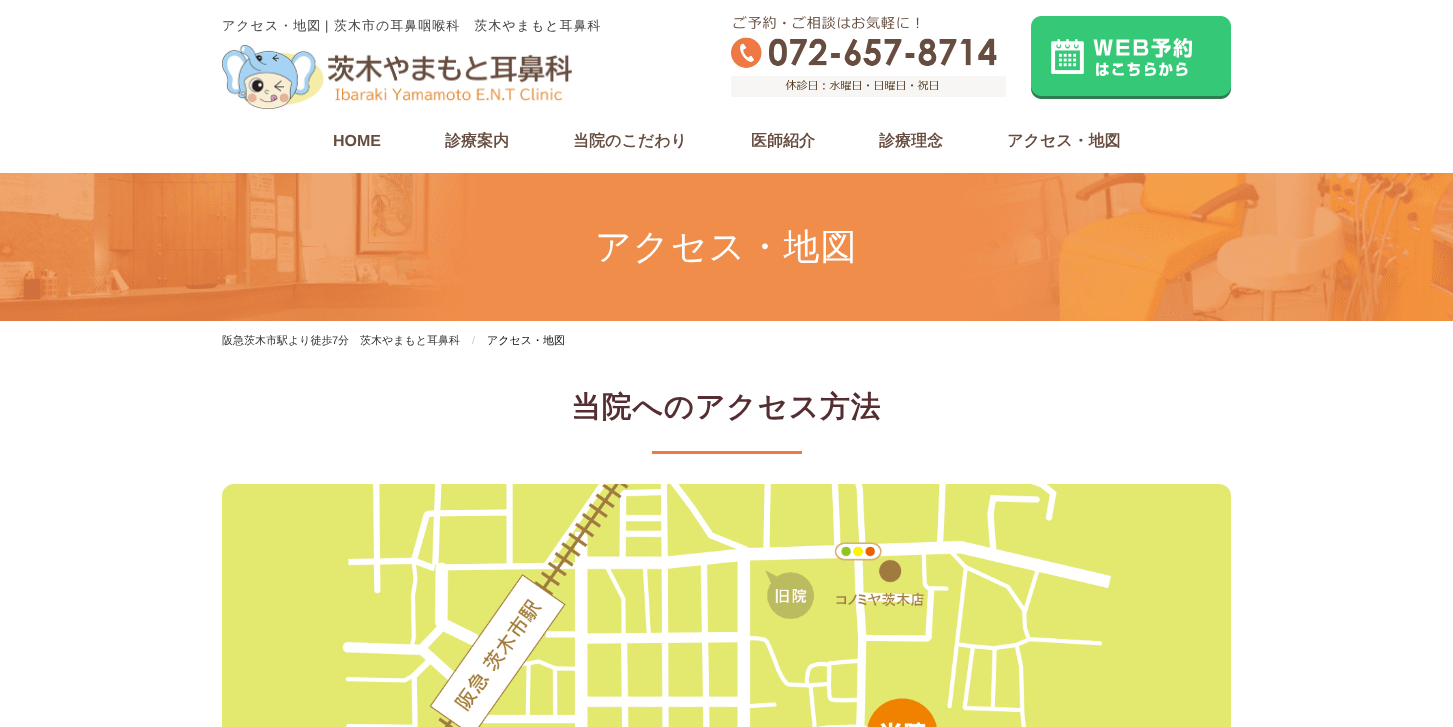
<svg xmlns="http://www.w3.org/2000/svg" width="1453" height="727">
<style>
.a{font:500 13px WenQuanYi Zen Hei;letter-spacing:1px;fill:#444}
.b{font:13px Liberation Sans;letter-spacing:1px;fill:#444}
.c{font:bold 16px Liberation Sans;fill:#674d3f}
.d{font:bold 16px WenQuanYi Zen Hei;fill:#674d3f}
.e{font:500 36px WenQuanYi Zen Hei;letter-spacing:1px;fill:#fff}
.f{font:500 11px WenQuanYi Zen Hei;fill:#333}
.g{font:11px Liberation Sans;fill:#333}
.h{font:11px Liberation Sans;fill:#cacaca}
.i{font:500 11px WenQuanYi Zen Hei;fill:#0a0a0a}
.j{font:bold 29.6px WenQuanYi Zen Hei;letter-spacing:1px;fill:#552e31}
</style>
<rect width="100%" height="100%" fill="#fff"/>
<image href="1.png" x="222" y="45" width="350" height="64"/>
<image href="2.png" x="731" y="16" width="275" height="81"/>
<image href="3.png" x="1031" y="16" width="200" height="83"/>
<image href="4.png" x="0" y="173" width="1453" height="148"/>
<path fill="#ef7945" d="M652 451h150v3H652z"/>
<image href="5.png" x="222" y="484" width="1009" height="243"/>
<text class="a" x="222" y="30">アクセス・地図</text>
<text class="b" x="325" y="30">|</text>
<text class="a" x="334" y="30">茨木市の耳鼻咽喉科　茨木やまもと耳鼻科</text>
<text class="c" x="333" y="146">HOME</text>
<text class="d" x="445" y="146">診療案内</text>
<text class="d" x="573" y="146">当院のこだわり</text>
<text class="d" x="751" y="146">医師紹介</text>
<text class="d" x="879" y="146">診療理念</text>
<text class="d" x="1007" y="146">アクセス・地図</text>
<text class="e" x="595" y="259">アクセス・地図</text>
<text class="f" x="222" y="344">阪急茨木市駅より徒歩</text>
<text class="g" x="332" y="344">7</text>
<text class="f" x="338" y="344">分　茨木やまもと耳鼻科</text>
<text class="h" x="472" y="344">/</text>
<text class="i" x="487" y="344">アクセス・地図</text>
<text class="j" x="571" y="417">当院へのアクセス方法</text>
</svg>
